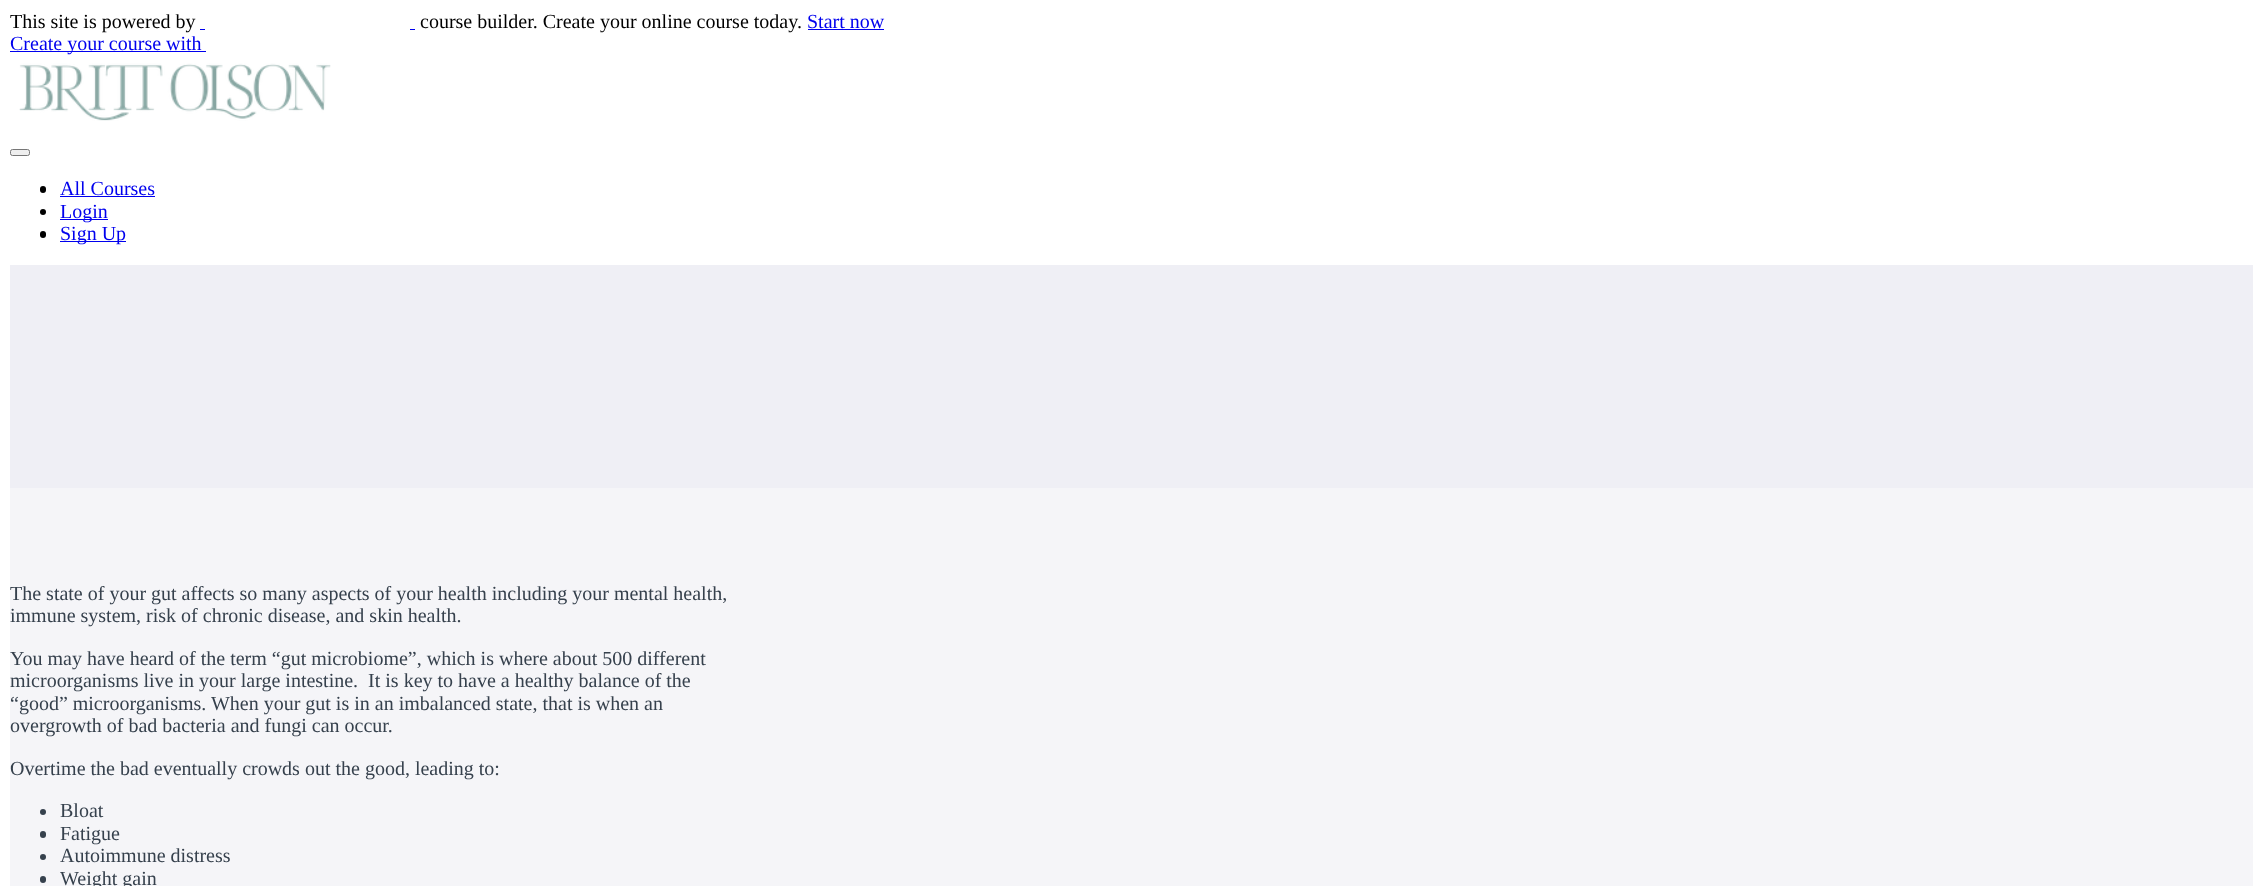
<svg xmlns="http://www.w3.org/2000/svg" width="2262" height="886">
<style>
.a{font:20px Liberation Serif;fill:#000}
.b{font:20px Liberation Serif;fill:#00e}
.c{font:20px Liberation Serif;fill:#36414d}
</style>
<rect width="100%" height="100%" fill="#fff"/>
<path fill="#00e" d="M808 29h76v1H808z"/>
<path fill="#00e" d="M200 29h5v1H200z"/>
<path fill="#00e" d="M410 29h5v1H410z"/>
<path fill="#00e" d="M10 51h196v1H10z"/>
<image href="1.png" x="19" y="63" width="312" height="58"/>
<rect fill="#efefef" stroke="#767676" x="10.5" y="149.5" width="19" height="6" rx="2"/>
<rect fill="#000" x="40" y="186" width="6" height="7" rx="3"/>
<path fill="#00e" d="M60 196h95v1H60z"/>
<circle fill="#000" cx="43" cy="212" r="3"/>
<path fill="#00e" d="M60 219h48v1H60z"/>
<rect fill="#000" x="40" y="231" width="6" height="7" rx="3"/>
<path fill="#00e" d="M60 241h66v1H60z"/>
<path fill="#efeff5" d="M10 265h2243v223H10z"/>
<path fill="#f5f5f8" d="M10 488h2243v398H10z"/>
<circle fill="#36414d" cx="43" cy="812" r="3"/>
<rect fill="#36414d" x="40" y="831" width="6" height="7" rx="3"/>
<circle fill="#36414d" cx="43" cy="857" r="3"/>
<rect fill="#36414d" x="40" y="876" width="6" height="7" rx="3"/>
<text class="a" x="10" y="28">This site is powered by</text>
<text class="a" x="420" y="28">course builder. Create your online course today.</text>
<text class="b" x="807" y="28">Start now</text>
<text class="b" x="10" y="50">Create your course with</text>
<text class="b" x="60" y="195">All Courses</text>
<text class="b" x="60" y="218">Login</text>
<text class="b" x="60" y="240">Sign Up</text>
<text class="c" x="10" y="600">The state of your gut affects so many aspects of your health including your mental health,</text>
<text class="c" x="10" y="622">immune system, risk of chronic disease, and skin health.</text>
<text class="c" x="10" y="665">You may have heard of the term “gut microbiome”, which is where about 500 different</text>
<text class="c" xml:space="preserve" x="10" y="687">microorganisms live in your large intestine.  It is key to have a healthy balance of the</text>
<text class="c" x="10" y="710">“good” microorganisms. When your gut is in an imbalanced state, that is when an</text>
<text class="c" x="10" y="732">overgrowth of bad bacteria and fungi can occur.</text>
<text class="c" x="10" y="775">Overtime the bad eventually crowds out the good, leading to:</text>
<text class="c" x="60" y="817">Bloat</text>
<text class="c" x="60" y="840">Fatigue</text>
<text class="c" x="60" y="862">Autoimmune distress</text>
<text class="c" x="60" y="885">Weight gain</text>
</svg>
